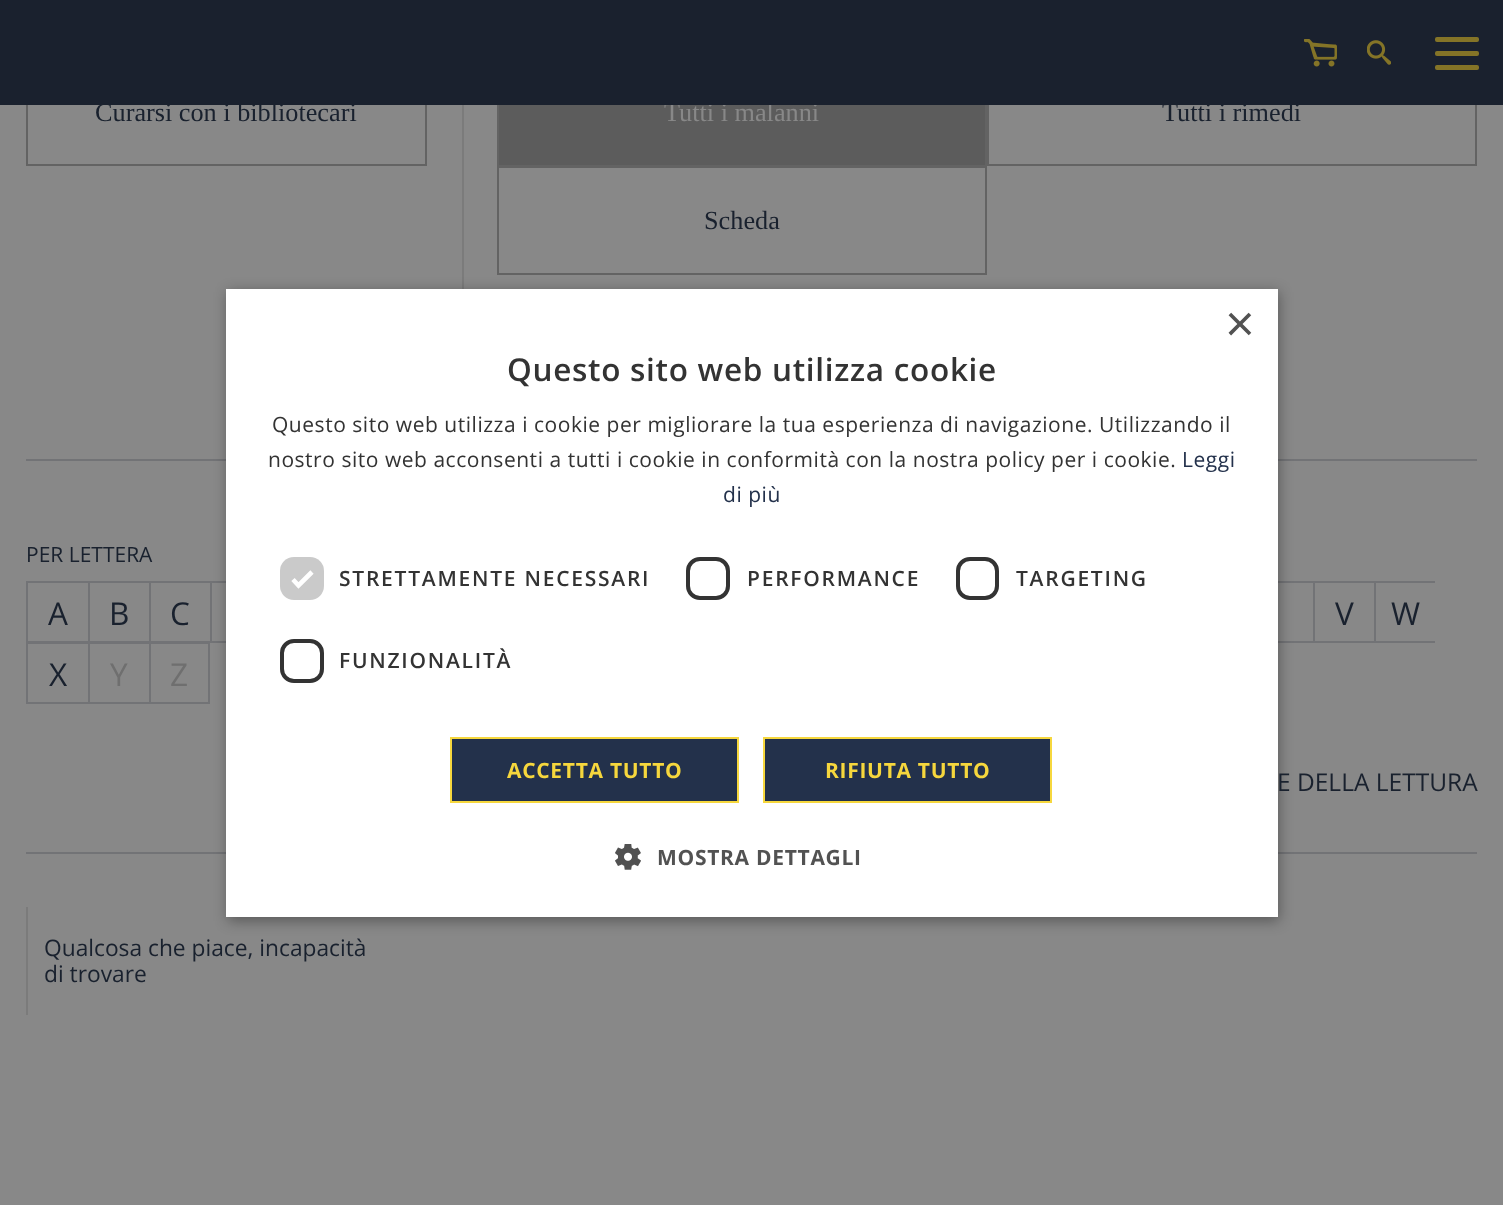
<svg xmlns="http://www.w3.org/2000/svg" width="1503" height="1205">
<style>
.a{font:26.25px Liberation Serif;fill:#19212e}
.b{font:26.25px Liberation Serif;fill:#888}
.c{font:21px Open Sans;fill:#19212e}
.d{font:31.5px Open Sans;fill:#19212e}
.e{font:31.5px Open Sans;fill:#6f6f6f}
.f{font:24.5px Open Sans;fill:#19212e}
.g{font:22.75px Open Sans;fill:#19212e}
.h{font:51px Liberation Sans;fill:#525252}
.i{font:600 31.5px Open Sans;letter-spacing:0.7px;fill:#333}
.j{font:21px Open Sans;letter-spacing:0.53px;fill:#333}
.k{font:21px Open Sans;letter-spacing:0.53px;fill:#23314b}
.l{font:600 21px Open Sans;letter-spacing:1.75px;fill:#333}
.m{font:bold 21px Open Sans;letter-spacing:0.7px;fill:#f6d73d}
.n{font:bold 21px Open Sans;letter-spacing:0.7px;fill:#525252}
</style>
<rect width="100%" height="100%" fill="#888"/>
<path fill="none" stroke="#636363" stroke-width="2" d="M27 59h399v106H27z"/>
<path fill="#7b7b7b" d="M462 105h2v184H462z"/>
<path fill="none" stroke="#636363" stroke-width="2" d="M498 59h488v106H498z"/>
<path fill="#5c5c5c" d="M499 105h486v60H499z"/>
<path fill="none" stroke="#636363" stroke-width="2" d="M988 59h488v106H988z"/>
<path fill="none" stroke="#636363" stroke-width="2" d="M498 167h488v107H498z"/>
<path fill="#727376" d="M26 852h1451v2H26z"/>
<path fill="#727376" d="M26 459h1451v2H26z"/>
<path fill="#727376" d="M26 581h200v2H26z"/>
<path fill="#727376" d="M26 641h184v1H26z"/>
<path fill="#727376" d="M26 581h2v61H26z"/>
<path fill="#727376" d="M88 581h2v61H88z"/>
<path fill="#727376" d="M149 581h2v61H149z"/>
<path fill="#727376" d="M210 641h16v2H210z"/>
<path fill="#727376" d="M210 581h2v61H210z"/>
<path fill="#727376" d="M1278 581h157v2H1278z"/>
<path fill="#727376" d="M1278 641h157v2H1278z"/>
<path fill="#727376" d="M1313 581h2v61H1313z"/>
<path fill="#727376" d="M1374 581h2v61H1374z"/>
<path fill="#727376" d="M26 642h123v2H26z"/>
<path fill="#727376" d="M26 702h123v2H26z"/>
<path fill="#727376" d="M26 642h2v62H26z"/>
<path fill="#727376" d="M88 642h2v62H88z"/>
<path fill="none" stroke="#727376" stroke-width="2" d="M150 643h59v60H150z"/>
<path fill="#7b7b7b" d="M26 907h2v108H26z"/>
<path fill="#00000059" filter="blur(7px)" d="M228 292h1051v629H228z"/>
<path fill="#fff" d="M226 289h1052v628H226z"/>
<rect fill="#cacaca" x="280" y="557" width="44" height="43" rx="14"/>
<path fill="none" stroke="#fff" stroke-width="4.6" d="M293 579.5l5.5 6l13.5-13.5"/>
<rect fill="none" stroke="#333" stroke-width="4" x="688" y="559" width="40" height="39" rx="12"/>
<rect fill="none" stroke="#333" stroke-width="4" x="958" y="559" width="39" height="39" rx="12"/>
<rect fill="none" stroke="#333" stroke-width="4" x="282" y="641" width="40" height="40" rx="12"/>
<path fill="#23314b" stroke="#f6d73d" stroke-width="2" d="M451 738h287v64H451z"/>
<path fill="#23314b" stroke="#f6d73d" stroke-width="2" d="M764 738h287v64H764z"/>
<image href="3.png" x="615" y="844" width="26" height="26"/>
<text class="a" x="95" y="121">Curarsi con i bibliotecari</text>
<text class="b" x="664" y="121">Tutti i malanni</text>
<text class="a" x="1162" y="121">Tutti i rimedi</text>
<path fill="#1a212e" d="M0 0h1503v105H0z"/>
<rect fill="#847427" x="1435" y="65" width="44" height="5" rx="2"/>
<rect fill="#847427" x="1435" y="37" width="44" height="5" rx="2"/>
<rect fill="#847427" x="1435" y="51" width="44" height="5" rx="2"/>
<image href="2.png" x="1367" y="40" width="24" height="25"/>
<image href="1.png" x="1304" y="39" width="33" height="28"/>
<text class="a" x="704" y="229">Scheda</text>
<text class="c" x="26" y="562">PER LETTERA</text>
<text class="d" x="48" y="625">A</text>
<text class="d" x="109" y="625">B</text>
<text class="d" x="170" y="625">C</text>
<text class="d" x="1335" y="625">V</text>
<text class="d" x="1391" y="625">W</text>
<text class="d" x="49" y="686">X</text>
<text class="e" x="110" y="686">Y</text>
<text class="e" x="170" y="686">Z</text>
<text class="f" x="1277" y="791">E DELLA LETTURA</text>
<text class="g" x="44" y="956">Qualcosa che piace, incapacità</text>
<text class="g" x="44" y="982">di trovare</text>
<text class="h" x="1225" y="341">×</text>
<text class="i" x="507" y="381">Questo sito web utilizza cookie</text>
<text class="j" x="272" y="432">Questo sito web utilizza i cookie per migliorare la tua esperienza di navigazione. Utilizzando il</text>
<text class="j" x="268" y="467">nostro sito web acconsenti a tutti i cookie in conformità con la nostra policy per i cookie.</text>
<text class="k" x="1182" y="467">Leggi</text>
<text class="k" x="723" y="502">di più</text>
<text class="l" x="339" y="586">STRETTAMENTE NECESSARI</text>
<text class="l" x="747" y="586">PERFORMANCE</text>
<text class="l" x="1016" y="586">TARGETING</text>
<text class="l" x="339" y="668">FUNZIONALITÀ</text>
<text class="m" x="507" y="778">ACCETTA TUTTO</text>
<text class="m" x="825" y="778">RIFIUTA TUTTO</text>
<text class="n" x="657" y="865">MOSTRA DETTAGLI</text>
</svg>
